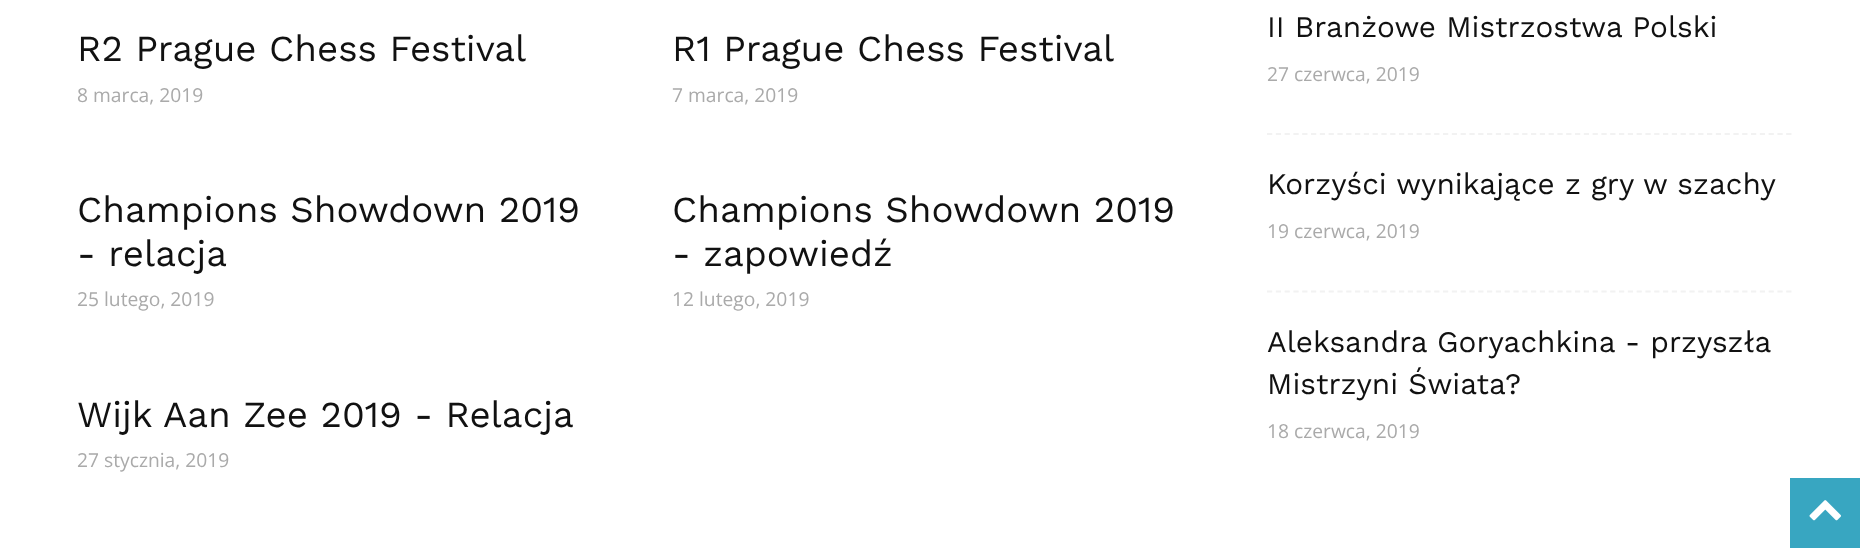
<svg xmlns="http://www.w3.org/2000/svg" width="1868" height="554">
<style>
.a{font:36.75px Work Sans;fill:#111}
.b{font:19.25px Open Sans;fill:#aaa}
.c{font:29.75px Work Sans;fill:#111}
</style>
<rect width="100%" height="100%" fill="#fff"/>
<path fill="none" stroke="#f2f2f2" stroke-width="1.8" stroke-dasharray="5.25 3.55" d="M1267 134h525"/>
<path fill="none" stroke="#f2f2f2" stroke-width="1.8" stroke-dasharray="5.25 3.55" d="M1267 291.5h525"/>
<path fill="#38a6c1" d="M1790 478h70v70H1790z"/>
<image href="1.png" x="1809" y="500" width="32" height="21"/>
<text class="a" x="77" y="61">R2 Prague Chess Festival</text>
<text class="b" x="77" y="102">8 marca, 2019</text>
<text class="a" x="672" y="61">R1 Prague Chess Festival</text>
<text class="b" x="672" y="102">7 marca, 2019</text>
<text class="a" x="77" y="222">Champions Showdown 2019</text>
<text class="a" x="77" y="266">- relacja</text>
<text class="b" x="77" y="306">25 lutego, 2019</text>
<text class="a" x="672" y="222">Champions Showdown 2019</text>
<text class="a" x="672" y="266">- zapowiedź</text>
<text class="b" x="672" y="306">12 lutego, 2019</text>
<text class="a" x="77" y="427">Wijk Aan Zee 2019 - Relacja</text>
<text class="b" x="77" y="467">27 stycznia, 2019</text>
<text class="c" x="1267" y="37">II Branżowe Mistrzostwa Polski</text>
<text class="b" x="1267" y="81">27 czerwca, 2019</text>
<text class="c" x="1267" y="194">Korzyści wynikające z gry w szachy</text>
<text class="b" x="1267" y="238">19 czerwca, 2019</text>
<text class="c" x="1267" y="352">Aleksandra Goryachkina - przyszła</text>
<text class="c" x="1267" y="394">Mistrzyni Świata?</text>
<text class="b" x="1267" y="438">18 czerwca, 2019</text>
</svg>
